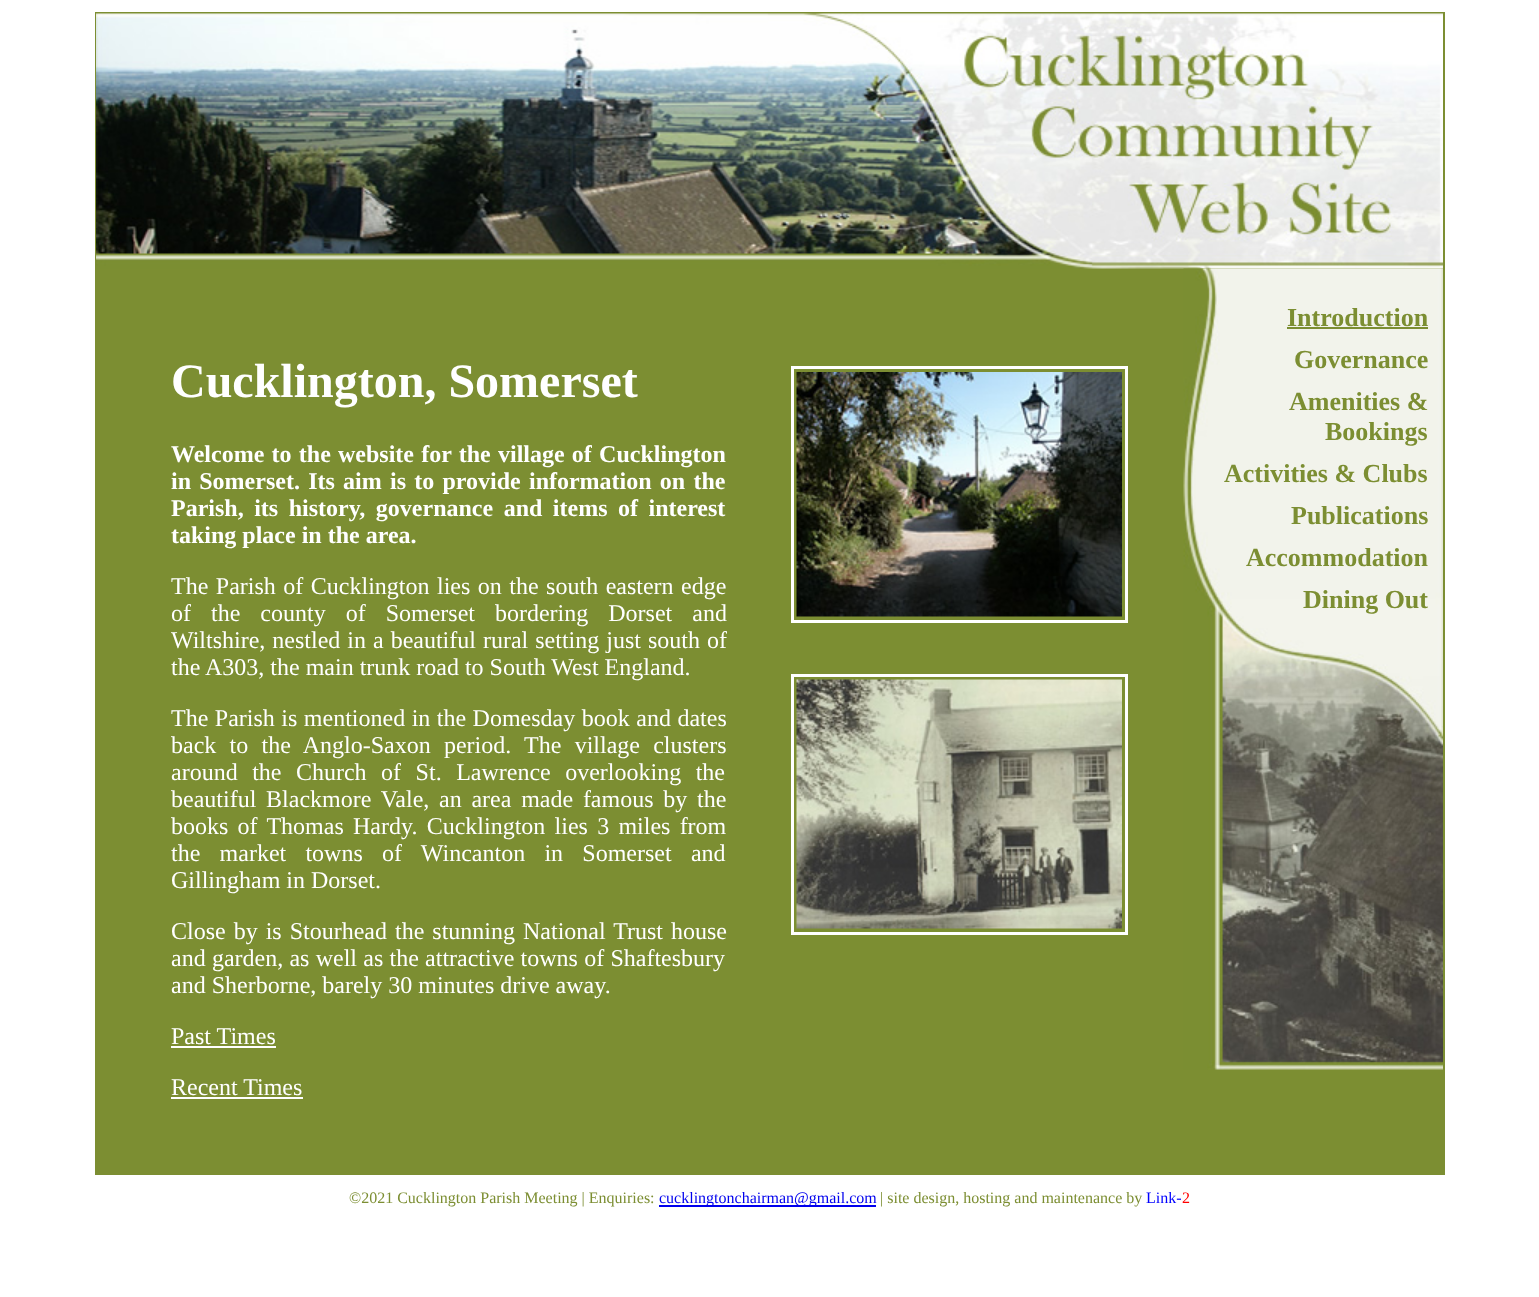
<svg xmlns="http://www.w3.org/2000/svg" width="1539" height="1297">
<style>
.a{font:bold 48px Liberation Serif;fill:#fff}
.b{font:bold 24px Liberation Serif;fill:#fff}
.c{font:24px Liberation Serif;fill:#fff}
.d{font:bold 26px Liberation Serif;fill:#7c8e32}
.e{font:16px Liberation Serif;fill:#7c8e32}
.f{font:16px Liberation Serif;fill:#00e}
.g{font:16px Liberation Serif;fill:#00f}
.h{font:16px Liberation Serif;fill:#f00}
</style>
<rect width="100%" height="100%" fill="#fff"/>
<path fill="#7c8e32" d="M95 12h1350v1163H95z"/>
<image href="1.png" x="96" y="13" width="1347" height="256"/>
<path fill="#fff" d="M171 1046h105v2H171z"/>
<path fill="#fff" d="M171 1097h132v2H171z"/>
<path fill="none" stroke="#fff" stroke-width="3" d="M792.5 367.5h334v254H792.5z"/>
<image href="2.png" x="796" y="372" width="326" height="245"/>
<path fill="none" stroke="#fff" stroke-width="3" d="M792.5 675.5h334v258H792.5z"/>
<image href="3.png" x="796" y="679" width="326" height="250"/>
<image href="4.png" x="1183" y="268" width="260" height="802"/>
<path fill="#7c8e32" d="M1287 327h141v2H1287z"/>
<path fill="#00e" d="M659 1205h217v2H659z"/>
<text class="a" x="171" y="397">Cucklington, Somerset</text>
<text class="b" x="171" y="462" word-spacing="1.25">Welcome to the website for the village of Cucklington</text>
<text class="b" x="171" y="489" word-spacing="2.25">in Somerset. Its aim is to provide information on the</text>
<text class="b" x="171" y="516" word-spacing="4.5">Parish, its history, governance and items of interest</text>
<text class="b" x="171" y="543">taking place in the area.</text>
<text class="c" x="171" y="594" word-spacing="1.5">The Parish of Cucklington lies on the south eastern edge</text>
<text class="c" x="171" y="621" word-spacing="14">of the county of Somerset bordering Dorset and</text>
<text class="c" x="171" y="648" word-spacing="1">Wiltshire, nestled in a beautiful rural setting just south of</text>
<text class="c" x="171" y="675">the A303, the main trunk road to South West England.</text>
<text class="c" x="171" y="726" word-spacing="0.5">The Parish is mentioned in the Domesday book and dates</text>
<text class="c" x="171" y="753" word-spacing="7.25">back to the Anglo-Saxon period. The village clusters</text>
<text class="c" x="171" y="780" word-spacing="8.5">around the Church of St. Lawrence overlooking the</text>
<text class="c" x="171" y="807" word-spacing="3.75">beautiful Blackmore Vale, an area made famous by the</text>
<text class="c" x="171" y="834" word-spacing="3.25">books of Thomas Hardy. Cucklington lies 3 miles from</text>
<text class="c" x="171" y="861" word-spacing="13.25">the market towns of Wincanton in Somerset and</text>
<text class="c" x="171" y="888">Gillingham in Dorset.</text>
<text class="c" x="171" y="939" word-spacing="2">Close by is Stourhead the stunning National Trust house</text>
<text class="c" x="171" y="966" word-spacing="0.25">and garden, as well as the attractive towns of Shaftesbury</text>
<text class="c" x="171" y="993">and Sherborne, barely 30 minutes drive away.</text>
<text class="c" x="171" y="1044">Past Times</text>
<text class="c" x="171" y="1095">Recent Times</text>
<text class="d" x="1287" y="326">Introduction</text>
<text class="d" x="1294" y="368">Governance</text>
<text class="d" x="1289" y="410">Amenities &amp;</text>
<text class="d" x="1325" y="440">Bookings</text>
<text class="d" x="1224" y="482">Activities &amp; Clubs</text>
<text class="d" x="1291" y="524">Publications</text>
<text class="d" x="1246" y="566">Accommodation</text>
<text class="d" x="1303" y="608">Dining Out</text>
<text class="e" x="349" y="1203">©2021 Cucklington Parish Meeting | Enquiries:</text>
<text class="f" x="659" y="1203">cucklingtonchairman@gmail.com</text>
<text class="e" x="880" y="1203">| site design, hosting and maintenance by</text>
<text class="g" x="1146" y="1203">Link-</text>
<text class="h" x="1182" y="1203">2</text>
</svg>
